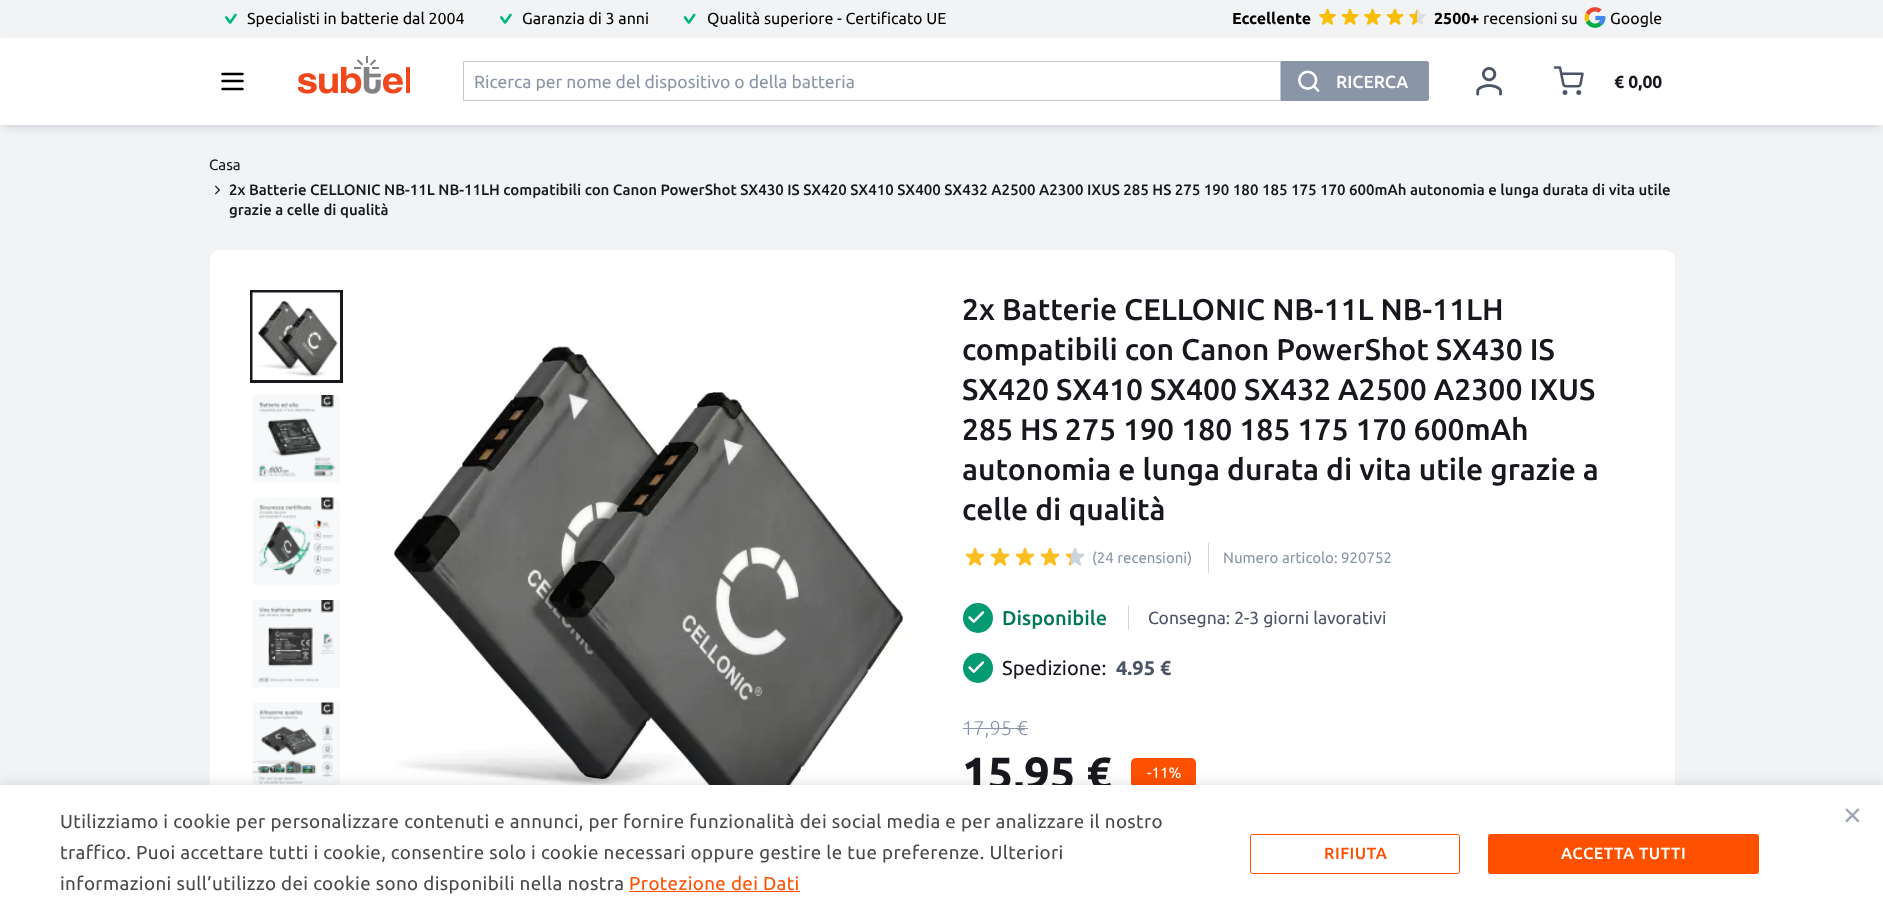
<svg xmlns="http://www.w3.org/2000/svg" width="1883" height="922">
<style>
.a{font:16px Ubuntu;fill:#000}
.b{font:bold 16px Ubuntu;fill:#000}
.c{font:17.5px Ubuntu;fill:#8a96a8}
.d{font:500 17.5px Ubuntu;fill:#fff}
.e{font:bold 17.5px Ubuntu;fill:#16181d}
.f{font:15px Ubuntu;fill:#16181d}
.g{font:500 15px Ubuntu;fill:#16181d}
.h{font:500 30px Ubuntu;fill:#16181d}
.i{font:15px Ubuntu;fill:#8a96a8}
.j{font:500 20px Ubuntu;fill:#027859}
.k{font:17.5px Ubuntu;fill:#4c5567}
.l{font:20px Ubuntu;fill:#16181d}
.m{font:bold 20px Ubuntu;fill:#4c5567}
.n{font:300 20px Ubuntu;fill:#8a96a8}
.o{font:bold 45px Ubuntu;fill:#16181d}
.p{font:15px Ubuntu;fill:#fff}
.q{font:18.75px Ubuntu;letter-spacing:0.38px;fill:#4a4a4a}
.r{font:18.75px Ubuntu;letter-spacing:0.38px;fill:#ff5000}
.s{font:500 16.25px Ubuntu;letter-spacing:0.5px;fill:#ff5000}
.t{font:500 16.25px Ubuntu;letter-spacing:0.5px;fill:#fff}
.u{font:32px Liberation Sans;fill:#9ca6b5}
</style>
<defs>
<clipPath id="clip1"><path d="M474 71h779v20H474z"/></clipPath>
</defs>
<rect width="100%" height="100%" fill="#f1f3f5"/>
<image href="1.png" x="225" y="13" width="12" height="11"/>
<image href="1.png" x="500" y="13" width="12" height="11"/>
<image href="2.png" x="683" y="13" width="13" height="11"/>
<image href="3.png" x="1319" y="8" width="17" height="17"/>
<image href="4.png" x="1341" y="8" width="18" height="17"/>
<image href="3.png" x="1364" y="8" width="17" height="17"/>
<image href="4.png" x="1386" y="8" width="18" height="17"/>
<image href="5.png" x="1409" y="9" width="17" height="16"/>
<image href="6.png" x="1584" y="7" width="22" height="21"/>
<path fill="#1018281a" filter="blur(5px)" d="M3 45h1878v83H3z"/>
<path fill="#1018280f" filter="blur(2.5px)" d="M3 43h1878v82H3z"/>
<path fill="#fff" d="M0 38h1883v87H0z"/>
<path fill="none" stroke="#000" stroke-width="2.5" stroke-linecap="round" stroke-linejoin="round" d="M222.5 74h20m-20 7h20m-20 8h20"/>
<image href="7.png" x="298" y="56" width="112" height="38"/>
<path fill="none" stroke="#c1c8d2" d="M463.5 61.5h817v39H463.5z"/>
<path fill="#8a96a8" d="M1281 61h145.5c1.5 0 2.5 1 2.5 2.5v35c0 1.5-1 2.5-2.5 2.5h-145.5z"/>
<image href="8.png" x="1298" y="70" width="22" height="22"/>
<image href="9.png" x="1476" y="67" width="26" height="29"/>
<image href="10.png" x="1553" y="66" width="31" height="29"/>
<image href="11.png" x="215" y="185" width="5" height="10"/>
<rect fill="#fff" x="210" y="250" width="1465" height="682" rx="10"/>
<path fill="none" stroke="#16181d" stroke-width="3" d="M251.5 291.5h90v90H251.5z"/>
<image href="12.png" x="252" y="292" width="88" height="88"/>
<image href="13.png" x="252" y="395" width="88" height="88"/>
<image href="14.png" x="252" y="497" width="88" height="88"/>
<image href="15.png" x="252" y="600" width="88" height="88"/>
<image href="16.png" x="252" y="702" width="88" height="83"/>
<image href="17.png" x="394" y="346" width="510" height="439"/>
<image href="18.png" x="965" y="547" width="20" height="19"/>
<image href="18.png" x="990" y="547" width="20" height="19"/>
<image href="18.png" x="1015" y="547" width="20" height="19"/>
<image href="18.png" x="1040" y="547" width="20" height="19"/>
<image href="19.png" x="1065" y="548" width="20" height="18"/>
<path fill="#d3d7df" d="M1208 543h1v30H1208z"/>
<circle fill="#049a72" cx="978" cy="618" r="15"/>
<image href="20.png" x="968" y="611" width="17" height="12"/>
<path fill="#d3d7df" d="M1128 605h1v25H1128z"/>
<circle fill="#049a72" cx="978" cy="668" r="15"/>
<image href="20.png" x="968" y="661" width="17" height="12"/>
<path fill="#8a96a8" d="M963 728h65v1H963z"/>
<rect fill="#ff5000" x="1131" y="758" width="65" height="30" rx="5"/>
<path fill="#0000001a" filter="blur(6px)" d="M0 783h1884v137H0z"/>
<text class="a" x="247" y="24">Specialisti in batterie dal 2004</text>
<text class="a" x="522" y="24">Garanzia di 3 anni</text>
<text class="a" x="707" y="24">Qualità superiore - Certificato UE</text>
<text class="b" x="1232" y="24">Eccellente</text>
<text class="b" x="1434" y="24">2500+</text>
<text class="a" x="1483" y="24">recensioni su</text>
<text class="a" x="1610" y="24">Google</text>
<g clip-path="url(#clip1)">
<text class="c" x="474" y="88">Ricerca per nome del dispositivo o della batteria</text>
</g>
<text class="d" x="1336" y="88">RICERCA</text>
<text class="e" x="1614" y="88">€ 0,00</text>
<text class="f" x="209" y="170">Casa</text>
<text class="g" x="229" y="195">2x Batterie CELLONIC NB-11L NB-11LH compatibili con Canon PowerShot SX430 IS SX420 SX410 SX400 SX432 A2500 A2300 IXUS 285 HS 275 190 180 185 175 170 600mAh autonomia e lunga durata di vita utile</text>
<text class="g" x="229" y="215">grazie a celle di qualità</text>
<text class="h" x="962" y="320">2x Batterie CELLONIC NB-11L NB-11LH</text>
<text class="h" x="962" y="360">compatibili con Canon PowerShot SX430 IS</text>
<text class="h" x="962" y="400">SX420 SX410 SX400 SX432 A2500 A2300 IXUS</text>
<text class="h" x="962" y="440">285 HS 275 190 180 185 175 170 600mAh</text>
<text class="h" x="962" y="480">autonomia e lunga durata di vita utile grazie a</text>
<text class="h" x="962" y="520">celle di qualità</text>
<text class="i" x="1092" y="563">(24 recensioni)</text>
<text class="i" x="1223" y="563">Numero articolo: 920752</text>
<text class="j" x="1002" y="625">Disponibile</text>
<text class="k" x="1148" y="624">Consegna: 2-3 giorni lavorativi</text>
<text class="l" x="1002" y="675">Spedizione:</text>
<text class="m" x="1116" y="675">4.95 €</text>
<text class="n" x="962" y="735">17,95 €</text>
<text class="o" x="962" y="789">15,95 €</text>
<text class="p" x="1147" y="778">-11%</text>
<path fill="#fff" d="M0 785h1883v137H0z"/>
<text class="q" x="60" y="828">Utilizziamo i cookie per personalizzare contenuti e annunci, per fornire funzionalità dei social media e per analizzare il nostro</text>
<text class="q" x="60" y="859">traffico. Puoi accettare tutti i cookie, consentire solo i cookie necessari oppure gestire le tue preferenze. Ulteriori</text>
<text class="q" x="60" y="890">informazioni sull’utilizzo dei cookie sono disponibili nella nostra</text>
<text class="r" x="629" y="890">Protezione dei Dati</text>
<path fill="#ff5000" d="M629 891h171v1H629z"/>
<rect fill="none" stroke="#ff5000" x="1250.5" y="834.5" width="209" height="39" rx="2"/>
<text class="s" x="1324" y="859">RIFIUTA</text>
<rect fill="#ff5000" stroke="#ff5000" x="1488.5" y="834.5" width="270" height="39" rx="2"/>
<text class="t" x="1561" y="859">ACCETTA TUTTI</text>
<text class="u" x="1843" y="826">×</text>
</svg>
